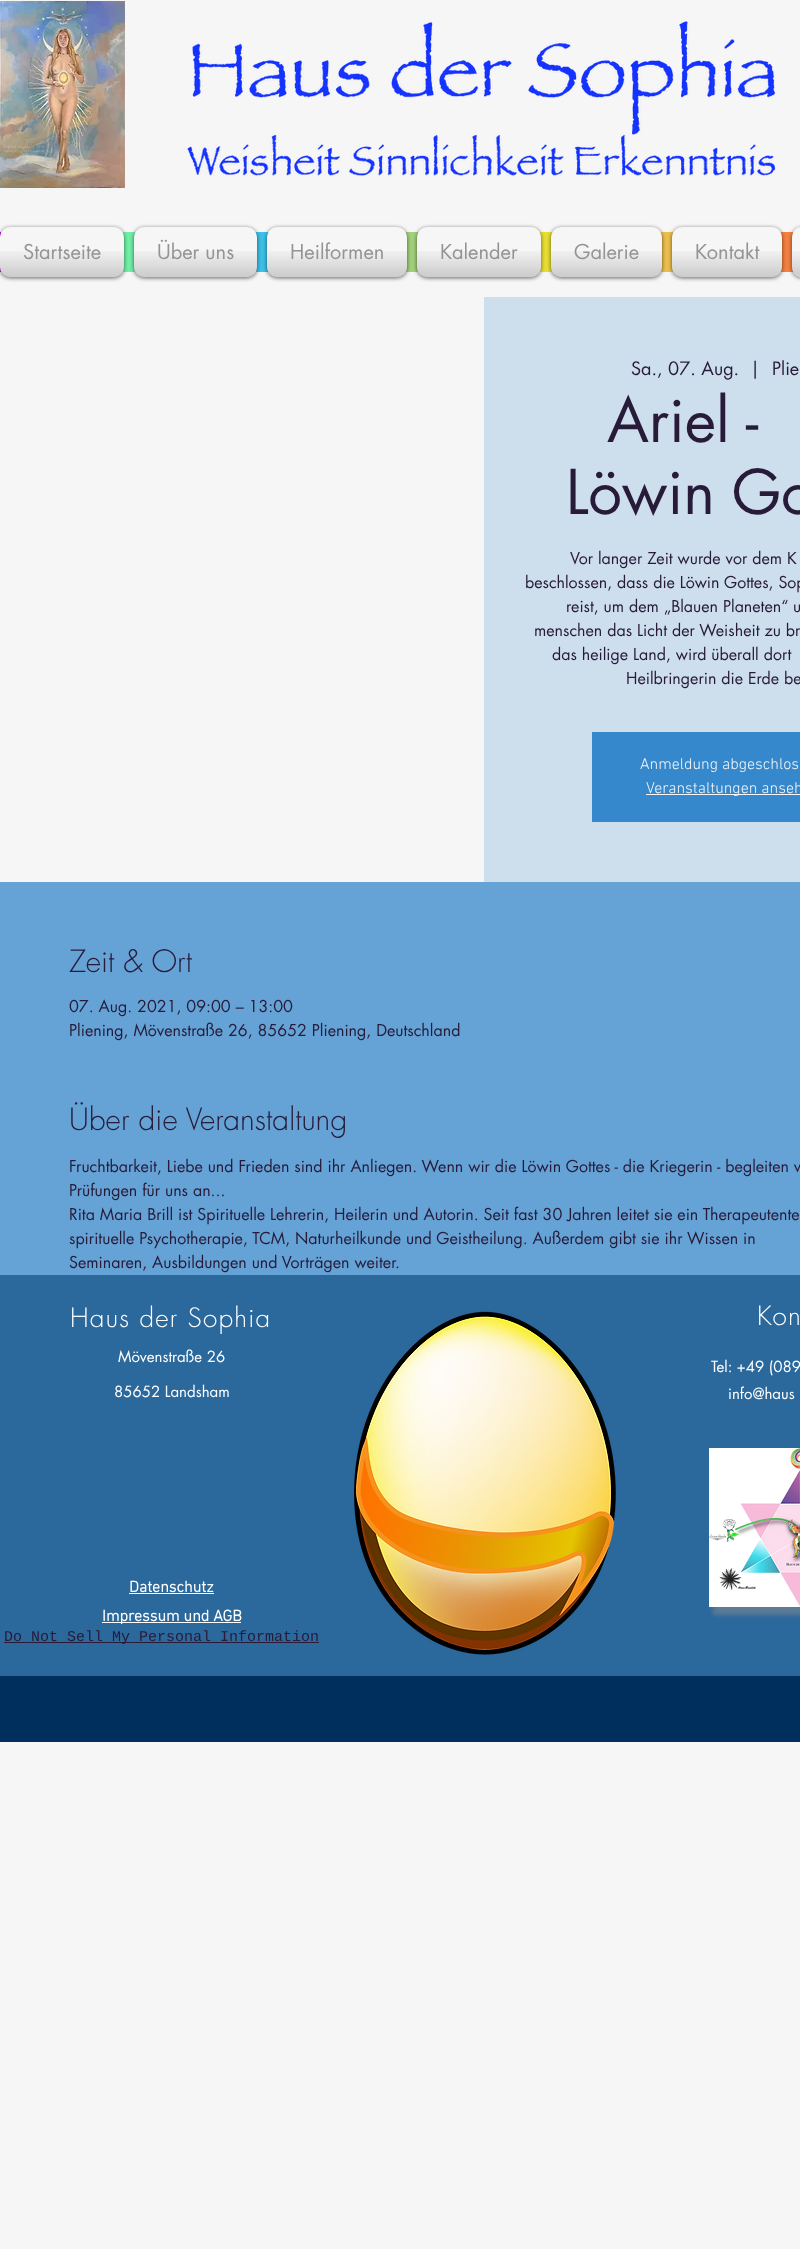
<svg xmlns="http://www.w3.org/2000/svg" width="800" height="2249">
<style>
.a{font:20px futura;fill:#949494}
.b{font:18px futura;fill:#281a39}
.c{font:60px futura;fill:#281a39}
.d{font:16px futura;fill:#281a39}
.e{font:300 16px 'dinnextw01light';fill:#f6f6f6}
.f{font:300 30px futura;fill:#281a39}
.g{font:300 26px futura;letter-spacing:1.25px;fill:#fff}
.h{font:15px futura;fill:#fff}
.i{font:bold 16px 'dinnextw01light';fill:#fff}
.j{font:15px Liberation Mono;fill:#281a39}
</style>
<rect width="100%" height="100%" fill="#f6f6f6"/>
<image href="1.png" x="0" y="1" width="125" height="187"/>
<image href="2.png" x="187" y="21" width="589" height="155"/>
<path fill="#b80be3" d="M0 232h2v40H0z"/>
<path fill="#70f0a6" d="M122 232h14v40H122z"/>
<path fill="#3dc1e9" d="M255 232h14v40H255z"/>
<path fill="#a2d17b" d="M405 232h14v40H405z"/>
<path fill="#e8df33" d="M539 232h14v40H539z"/>
<path fill="#edc04e" d="M660 232h14v40H660z"/>
<path fill="#f58142" d="M780 232h14v40H780z"/>
<rect fill="#00000099" filter="blur(2px)" y="228" width="124" height="50" rx="10"/>
<rect fill="#f6f6f6" y="227" width="124" height="50" rx="10"/>
<path fill="#eedaf4" d="M1 232h1v1H1z"/>
<image href="3.png" x="0" y="251" width="124" height="26"/>
<rect fill="#00000099" filter="blur(2px)" x="134" y="228" width="123" height="50" rx="10"/>
<rect fill="#f6f6f6" x="134" y="227" width="123" height="50" rx="10"/>
<image href="4.png" x="134" y="251" width="123" height="26"/>
<rect fill="#00000099" filter="blur(2px)" x="267" y="228" width="140" height="50" rx="10"/>
<rect fill="#f6f6f6" x="267" y="227" width="140" height="50" rx="10"/>
<image href="5.png" x="267" y="251" width="140" height="26"/>
<rect fill="#00000099" filter="blur(2px)" x="417" y="228" width="124" height="50" rx="10"/>
<rect fill="#f6f6f6" x="417" y="227" width="124" height="50" rx="10"/>
<image href="6.png" x="417" y="251" width="124" height="26"/>
<rect fill="#00000099" filter="blur(2px)" x="551" y="228" width="111" height="50" rx="10"/>
<rect fill="#f6f6f6" x="551" y="227" width="111" height="50" rx="10"/>
<image href="7.png" x="551" y="251" width="111" height="26"/>
<rect fill="#00000099" filter="blur(2px)" x="672" y="228" width="110" height="50" rx="10"/>
<rect fill="#f6f6f6" x="672" y="227" width="110" height="50" rx="10"/>
<image href="8.png" x="672" y="251" width="110" height="26"/>
<rect fill="#00000099" filter="blur(2px)" x="792" y="228" width="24" height="50" rx="10"/>
<rect fill="#f6f6f6" x="792" y="227" width="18" height="50" rx="10"/>
<image href="9.png" x="792" y="251" width="8" height="26"/>
<path fill="#cddfed" d="M484 297h316v585H484z"/>
<path fill="#3588cc" d="M592 732h208v90H592z"/>
<path fill="#f6f6f6" d="M646 794h154v1H646z"/>
<path fill="#65a3d6" d="M0 882h800v393H0z"/>
<path fill="#2b689c" d="M0 1275h800v401H0z"/>
<path fill="#fff" d="M129 1593h85v1H129z"/>
<path fill="#fff" d="M102 1622h139v1H102z"/>
<path fill="#8d8d8d80" filter="blur(2px)" d="M713 1452h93v163H713z"/>
<path fill="#fff" d="M709 1448h91v159H709z"/>
<image href="10.png" x="709" y="1448" width="91" height="159"/>
<path fill="#281a39" d="M4 1642h315v1H4z"/>
<image href="11.png" x="354" y="1311" width="262" height="344"/>
<path fill="#002e5d" d="M0 1676h800v66H0z"/>
<text class="a" x="23" y="259">Startseite</text>
<text class="a" x="157" y="259">Über uns</text>
<text class="a" x="290" y="259">Heilformen</text>
<text class="a" x="440" y="259">Kalender</text>
<text class="a" x="574" y="259">Galerie</text>
<text class="a" x="695" y="259">Kontakt</text>
<text class="b" x="631" y="375">Sa., 07. Aug.</text>
<text class="b" x="750" y="375">|</text>
<text class="b" x="772" y="375">Plie</text>
<text class="c" x="607" y="442">Ariel -</text>
<text class="c" x="566" y="514">Löwin Go</text>
<text class="d" x="570" y="564">Vor langer Zeit wurde vor dem K</text>
<text class="d" x="525" y="588">beschlossen, dass die Löwin Gottes, Sop</text>
<text class="d" x="566" y="612">reist, um dem „Blauen Planeten“ u</text>
<text class="d" x="534" y="636">menschen das Licht der Weisheit zu br</text>
<text class="d" x="552" y="660">das heilige Land, wird überall dort</text>
<text class="d" x="626" y="684">Heilbringerin die Erde be</text>
<text class="e" x="640" y="769">Anmeldung abgeschlos</text>
<text class="e" x="646" y="793">Veranstaltungen anseh</text>
<text class="f" x="69" y="972">Zeit &amp; Ort</text>
<text class="d" x="69" y="1012">07. Aug. 2021, 09:00 – 13:00</text>
<text class="d" x="69" y="1036">Pliening, Mövenstraße 26, 85652 Pliening, Deutschland</text>
<text class="f" x="69" y="1130">Über die Veranstaltung</text>
<text class="d" x="69" y="1172">Fruchtbarkeit, Liebe und Frieden sind ihr Anliegen. Wenn wir die Löwin Gottes - die Kriegerin - begleiten w</text>
<text class="d" x="69" y="1196">Prüfungen für uns an...</text>
<text class="d" x="69" y="1220">Rita Maria Brill ist Spirituelle Lehrerin, Heilerin und Autorin. Seit fast 30 Jahren leitet sie ein Therapeutente</text>
<text class="d" x="69" y="1244">spirituelle Psychotherapie, TCM, Naturheilkunde und Geistheilung. Außerdem gibt sie ihr Wissen in</text>
<text class="d" x="69" y="1268">Seminaren, Ausbildungen und Vorträgen weiter.</text>
<text class="g" x="70" y="1327">Haus der Sophia</text>
<text class="h" x="118" y="1362">Mövenstraße 26</text>
<text class="h" x="114" y="1397">85652 Landsham</text>
<text class="i" x="129" y="1592">Datenschutz</text>
<text class="i" x="102" y="1621">Impressum und AGB</text>
<text class="g" x="757" y="1325">Kon</text>
<text class="h" x="711" y="1372">Tel: +49 (089</text>
<text class="h" x="728" y="1399">info@haus</text>
<text class="j" x="4" y="1641">Do Not Sell My Personal Information</text>
</svg>
